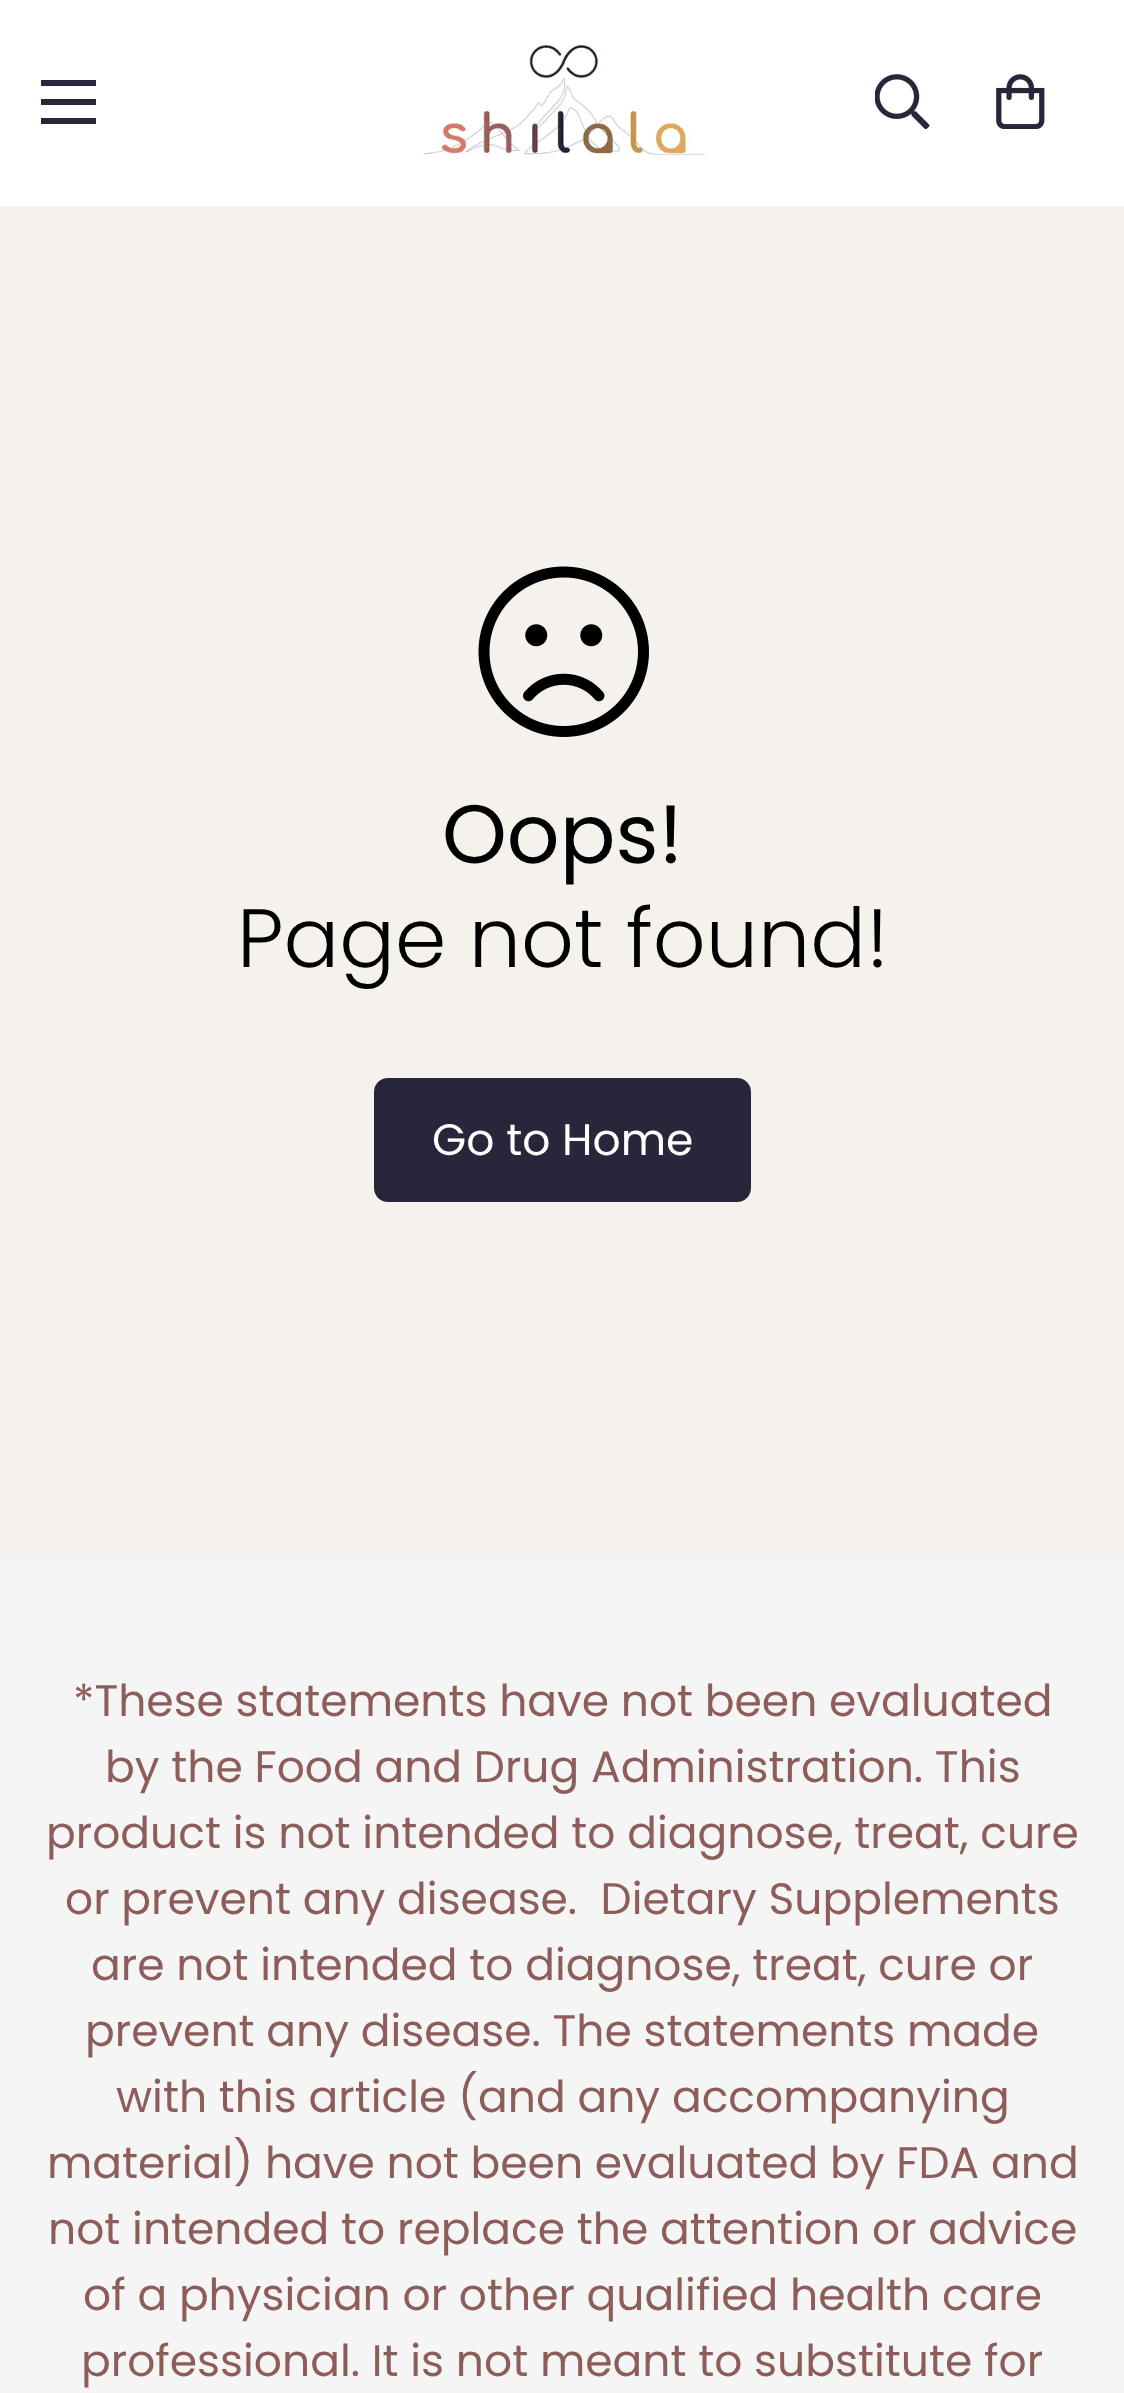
<svg xmlns="http://www.w3.org/2000/svg" width="1124" height="2393">
<style>
.a{font:82.5px Poppins;fill:#000}
.b{font:300 82.5px Poppins;fill:#000}
.c{font:44px Poppins;fill:#fff}
.d{font:44px Poppins;fill:#8d5d5a}
</style>
<rect width="100%" height="100%" fill="#fff"/>
<path fill="#28263a" d="M41 99h55v6H41z"/>
<path fill="#28263a" d="M41 80h55v6H41z"/>
<path fill="#28263a" d="M41 118h55v6H41z"/>
<image href="1.png" x="423" y="44" width="282" height="113"/>
<image href="2.png" x="875" y="74" width="55" height="55"/>
<image href="3.png" x="996" y="74" width="49" height="55"/>
<path fill="#f5f1ed" d="M0 206h1124v1353H0z"/>
<image href="4.png" x="478" y="566" width="171" height="171"/>
<rect fill="#28263a" stroke="#28263a" stroke-width="3" x="375.5" y="1079.5" width="374" height="121" rx="12.5"/>
<path fill="#f5f5f5" d="M0 1559h1124v834H0z"/>
<text class="a" x="442" y="863">Oops!</text>
<text class="b" x="237" y="967">Page not found!</text>
<text class="c" x="432" y="1155">Go to Home</text>
<text class="d" x="73" y="1716">*These statements have not been evaluated</text>
<text class="d" x="105" y="1782">by the Food and Drug Administration. This</text>
<text class="d" x="46" y="1848">product is not intended to diagnose, treat, cure</text>
<text class="d" xml:space="preserve" x="65" y="1914">or prevent any disease.  Dietary Supplements</text>
<text class="d" x="91" y="1980">are not intended to diagnose, treat, cure or</text>
<text class="d" x="85" y="2046">prevent any disease. The statements made</text>
<text class="d" x="116" y="2112">with this article (and any accompanying</text>
<text class="d" x="47" y="2178">material) have not been evaluated by FDA and</text>
<text class="d" x="48" y="2244">not intended to replace the attention or advice</text>
<text class="d" x="83" y="2310">of a physician or other qualified health care</text>
<text class="d" x="81" y="2376">professional. It is not meant to substitute for</text>
</svg>
